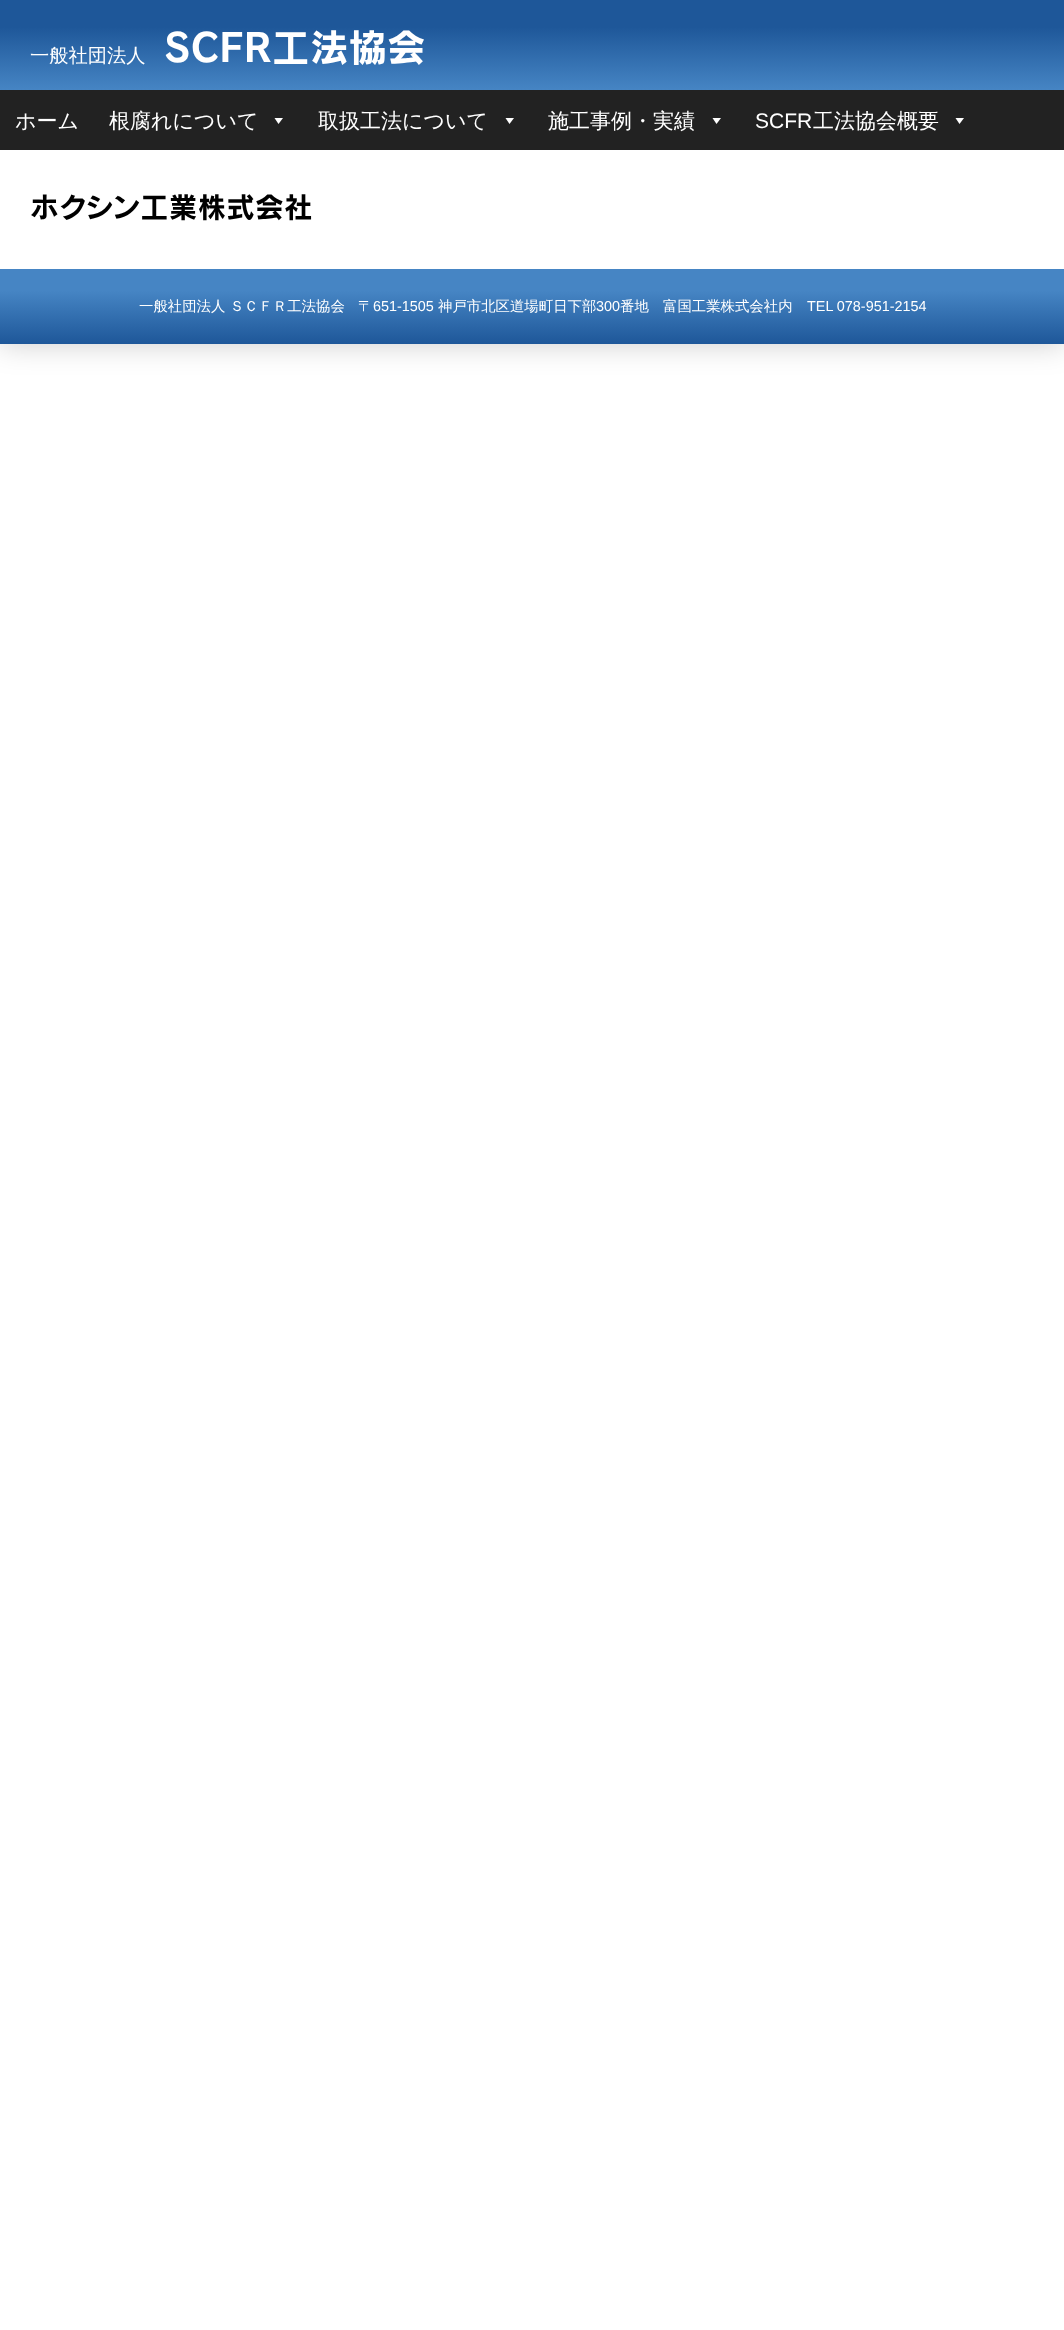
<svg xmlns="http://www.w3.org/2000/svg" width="1064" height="2330">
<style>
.a{font:500 19.25px WenQuanYi Zen Hei;fill:#fff}
.b{font:bold 38.5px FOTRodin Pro;fill:#fff}
.c{font:500 21px WenQuanYi Zen Hei;fill:#fff}
.d{font:21px Liberation Sans;fill:#fff}
.e{font:bold 28.75px FOTRodin Pro;fill:#000}
.f{font:500 14.4px WenQuanYi Zen Hei;fill:#fff}
.g{font:14.4px Liberation Sans;fill:#fff}
</style>
<defs>
<linearGradient id="g1" gradientUnits="userSpaceOnUse" x1="533" y1="0" x2="533" y2="90"><stop offset="0.3" stop-color="#1e5799"/><stop offset="1" stop-color="#4685c4"/></linearGradient>
<linearGradient id="g2" gradientUnits="userSpaceOnUse" x1="533" y1="268" x2="533" y2="344"><stop offset="0.3" stop-color="#4685c4"/><stop offset="1" stop-color="#1e5799"/></linearGradient>
</defs>
<rect width="100%" height="100%" fill="#fff"/>
<path fill="#00000033" filter="blur(15px)" d="M0 0h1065v344H0z"/>
<path fill="#fff" d="M0 150h1064v119H0z"/>
<path fill="url(#g1)" d="M0 0h1064v90H0z"/>
<path fill="#222" d="M0 90h1064v60H0z"/>
<path fill="#fff" d="M283 118l-4.5 6l-4-6z"/>
<path fill="#fff" d="M514 118l-4.5 6l-4-6z"/>
<path fill="#fff" d="M721 118l-4.5 6l-4-6z"/>
<path fill="#fff" d="M964 118l-4.5 6l-4-6z"/>
<path fill="url(#g2)" d="M0 269h1064v75H0z"/>
<text class="a" x="30" y="62">一般社団法人</text>
<text class="b" x="164" y="62">SCFR工法協会</text>
<text class="c" x="15" y="128">ホーム</text>
<text class="c" x="109" y="128">根腐れについて</text>
<text class="c" x="318" y="128">取扱工法について</text>
<text class="c" x="548" y="128">施工事例・実績</text>
<text class="d" x="755" y="128">SCFR</text>
<text class="c" x="813" y="128">工法協会概要</text>
<text class="e" x="30" y="218">ホクシン工業株式会社</text>
<text class="f" x="139" y="311">一般社団法人 ＳＣＦＲ工法協会</text>
<text class="f" x="358" y="311">〒</text>
<text class="g" x="373" y="311">651-1505</text>
<text class="f" x="438" y="311">神戸市北区道場町日下部</text>
<text class="g" x="596" y="311">300</text>
<text class="f" x="620" y="311">番地</text>
<text class="f" x="663" y="311">富国工業株式会社内</text>
<text class="g" x="807" y="311">TEL 078-951-2154</text>
</svg>
